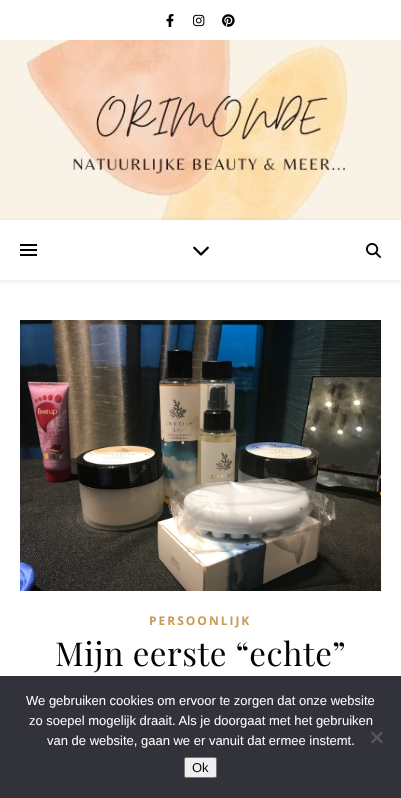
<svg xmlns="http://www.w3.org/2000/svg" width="401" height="798">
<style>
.a{font:bold 12px Open Sans;letter-spacing:2px;fill:#ca9b52}
.b{font:33px Playfair Display;letter-spacing:0.5px;fill:#030303}
.c{font:13px Liberation Sans;fill:#fff}
.d{font:13px Liberation Sans;fill:#030303}
</style>
<defs>
<clipPath id="clip1"><path d="M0 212h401v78h-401zm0 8h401v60h-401z" clip-rule="evenodd"/></clipPath>
</defs>
<rect width="100%" height="100%" fill="#fff"/>
<image href="1.png" x="166" y="14" width="8" height="13"/>
<image href="2.png" x="193" y="14" width="12" height="13"/>
<image href="3.png" x="222" y="14" width="13" height="13"/>
<image href="4.png" x="0" y="40" width="401" height="180"/>
<g clip-path="url(#clip1)">
<path fill="#0000001a" filter="blur(2.5px)" d="M0 221h401v60H0z"/>
</g>
<path fill="#000" d="M20 244h17v2H20z"/>
<path fill="#000" d="M20 249h17v2H20z"/>
<path fill="#000" d="M20 254h17v2H20z"/>
<image href="5.png" x="193" y="246" width="16" height="10"/>
<image href="6.png" x="366" y="243" width="15" height="15"/>
<image href="7.png" x="20" y="320" width="361" height="271"/>
<path fill="#32323a" d="M0 676h401v122H0z"/>
<path fill="#59595d" d="M381.5 731.5l1.5 1.5l-10.5 10.5l-1.5-1.5z"/>
<path fill="#59595d" d="M371 733l1.5-1.5l10.5 10.5l-1.5 1.5z"/>
<rect fill="#efefef" stroke="#767676" x="184.5" y="757.5" width="32" height="20" rx="1.5"/>
<text class="a" x="149" y="625">PERSOONLIJK</text>
<text class="b" x="55" y="666">Mijn eerste “echte”</text>
<text class="c" x="26" y="705">We gebruiken cookies om ervoor te zorgen dat onze website</text>
<text class="c" x="29" y="725">zo soepel mogelijk draait. Als je doorgaat met het gebruiken</text>
<text class="c" x="47" y="745">van de website, gaan we er vanuit dat ermee instemt.</text>
<text class="d" x="192" y="772">Ok</text>
</svg>
